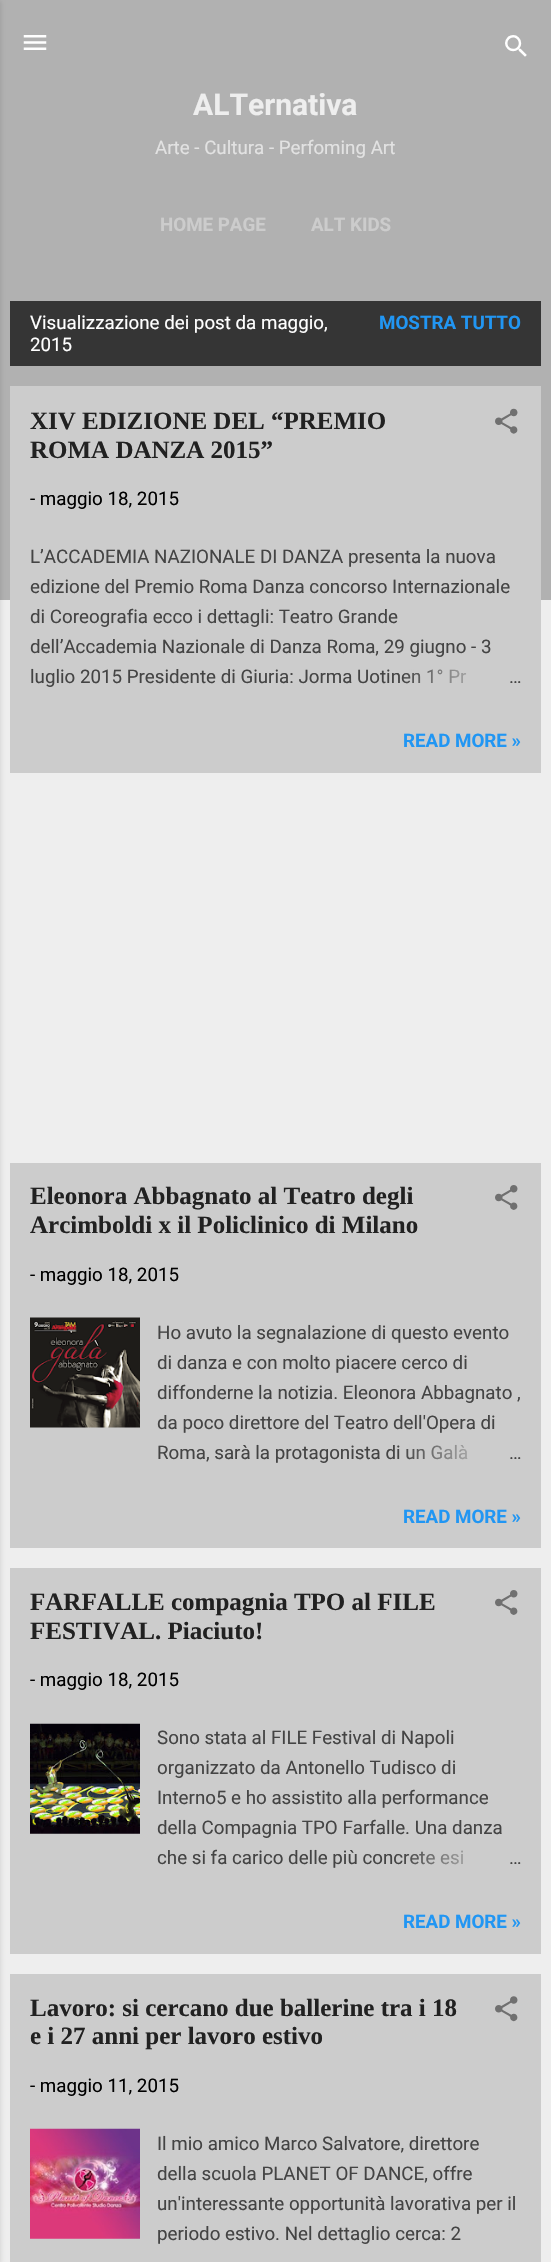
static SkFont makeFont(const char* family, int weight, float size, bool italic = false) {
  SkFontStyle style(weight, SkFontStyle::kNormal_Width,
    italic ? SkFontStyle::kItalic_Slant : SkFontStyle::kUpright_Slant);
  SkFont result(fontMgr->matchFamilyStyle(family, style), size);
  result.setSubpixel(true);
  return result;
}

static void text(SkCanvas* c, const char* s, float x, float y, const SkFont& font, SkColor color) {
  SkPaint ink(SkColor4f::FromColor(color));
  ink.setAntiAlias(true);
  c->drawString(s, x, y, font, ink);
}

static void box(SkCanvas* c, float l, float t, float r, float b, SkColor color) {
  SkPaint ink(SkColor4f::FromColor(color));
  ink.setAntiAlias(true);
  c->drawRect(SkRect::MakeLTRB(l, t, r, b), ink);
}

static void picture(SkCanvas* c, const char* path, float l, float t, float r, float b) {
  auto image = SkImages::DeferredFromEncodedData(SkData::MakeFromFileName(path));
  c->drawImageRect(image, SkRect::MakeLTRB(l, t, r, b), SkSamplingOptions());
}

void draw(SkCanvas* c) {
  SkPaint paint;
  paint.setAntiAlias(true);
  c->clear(0xffeeeeee);
  box(c, 0, 0, 551, 600, 0xffb1b1b1);
  paint.setColor(0x1a000000);
  paint.setMaskFilter(SkMaskFilter::MakeBlur(kNormal_SkBlurStyle, 2));
  c->drawRect(SkRect::MakeLTRB(-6, 1, 1, 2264), paint);
  paint.setMaskFilter(nullptr);
  picture(c, "img_01.png", 23, 35, 47, 50);
  picture(c, "img_02.png", 505, 35, 527, 57);
  SkFont face1 = makeFont("Roboto", 700, 30);
  text(c, "ALTernativa", 193, 115, face1, 0xffeeeeee);
  SkFont face2 = makeFont("Roboto", 400, 18.75f);
  text(c, "Arte - Cultura - Perfoming Art", 155, 154, face2, 0xffe2e2e2);
  SkFont face3 = makeFont("Roboto", 700, 18.75f);
  text(c, "HOME PAGE", 160, 231, face3, 0xffcccccc);
  text(c, "ALT KIDS", 311, 231, face3, 0xffcccccc);
  box(c, 10, 301, 541, 366, 0xff353535);
  text(c, "Visualizzazione dei post da maggio,", 30, 329, face2, 0xffffffff);
  text(c, "2015", 30, 351, face2, 0xffffffff);
  text(c, "MOSTRA TUTTO", 379, 329, face3, 0xff2196f3);
  box(c, 10, 386, 541, 773, 0xffcccccc);
  SkFont face4 = makeFont("Liberation Serif", 700, 25);
  text(c, "XIV EDIZIONE DEL “PREMIO", 30, 429, face4, 0xff212121);
  text(c, "ROMA DANZA 2015”", 30, 458, face4, 0xff212121);
  picture(c, "img_03.png", 495, 408, 518, 434);
  text(c, "- maggio 18, 2015", 30, 505, face2, 0xff000000);
  text(c, "L’ACCADEMIA NAZIONALE DI DANZA presenta la nuova", 30, 563, face2, 0xff444444);
  text(c, "edizione del Premio Roma Danza concorso Internazionale", 30, 593, face2, 0xff444444);
  text(c, "di Coreografia ecco i dettagli: Teatro Grande", 30, 623, face2, 0xff444444);
  text(c, "dell’Accademia Nazionale di Danza Roma, 29 giugno - 3", 30, 653, face2, 0xff444444);
  text(c, "luglio 2015 Presidente di Giuria: Jorma Uotinen 1° Pr", 30, 683, face2, 0xff444444);
  {
    const SkColor colors[] = {0xffcccccc, 0xffcccccc, 0x00cccccc};
    const float stops[] = {0, 0.2f, 1};
    const SkPoint ends[] = {{521, 678}, {401, 678}};
    paint.setShader(SkGradientShader::MakeLinear(ends, colors, stops, 3, SkTileMode::kClamp));
    paint.setAlpha(255);
  }
  c->drawRect(SkRect::MakeLTRB(403, 669, 467, 683), paint);
  text(c, "…", 509, 683, face2, 0xff444444);
  text(c, "READ MORE »", 403, 747, face3, 0xff2196f3);
  box(c, 10, 1163, 541, 1548, 0xffcccccc);
  text(c, "Eleonora Abbagnato al Teatro degli", 30, 1204, face4, 0xff212121);
  text(c, "Arcimboldi x il Policlinico di Milano", 30, 1233, face4, 0xff212121);
  picture(c, "img_04.png", 495, 1185, 518, 1210);
  text(c, "- maggio 18, 2015", 30, 1281, face2, 0xff000000);
  picture(c, "img_05.png", 30, 1317, 140, 1428);
  text(c, "Ho avuto la segnalazione di questo evento", 157, 1339, face2, 0xff444444);
  text(c, "di danza e con molto piacere cerco di", 157, 1369, face2, 0xff444444);
  text(c, "diffonderne la notizia. Eleonora Abbagnato ,", 157, 1399, face2, 0xff444444);
  text(c, "da poco direttore del Teatro dell'Opera di", 157, 1429, face2, 0xff444444);
  text(c, "Roma, sarà la protagonista di un Galà", 157, 1459, face2, 0xff444444);
  {
    const SkColor colors[] = {0xffcccccc, 0xffcccccc, 0x00cccccc};
    const float stops[] = {0, 0.2f, 1};
    const SkPoint ends[] = {{521, 1453}, {401, 1453}};
    paint.setShader(SkGradientShader::MakeLinear(ends, colors, stops, 3, SkTileMode::kClamp));
    paint.setAlpha(255);
  }
  c->drawRect(SkRect::MakeLTRB(406, 1444, 467, 1460), paint);
  text(c, "…", 509, 1459, face2, 0xff444444);
  text(c, "READ MORE »", 403, 1523, face3, 0xff2196f3);
  box(c, 10, 1568, 541, 1954, 0xffcccccc);
  text(c, "FARFALLE compagnia TPO al FILE", 30, 1610, face4, 0xff212121);
  text(c, "FESTIVAL. Piaciuto!", 30, 1639, face4, 0xff212121);
  picture(c, "img_04.png", 495, 1590, 518, 1615);
  text(c, "- maggio 18, 2015", 30, 1686, face2, 0xff000000);
  picture(c, "img_06.png", 30, 1723, 140, 1834);
  text(c, "Sono stata al FILE Festival di Napoli", 157, 1744, face2, 0xff444444);
  text(c, "organizzato da Antonello Tudisco di", 157, 1774, face2, 0xff444444);
  text(c, "Interno5 e ho assistito alla performance", 157, 1804, face2, 0xff444444);
  text(c, "della Compagnia TPO Farfalle. Una danza", 157, 1834, face2, 0xff444444);
  text(c, "che si fa carico delle più concrete esi", 157, 1864, face2, 0xff444444);
  {
    const SkColor colors[] = {0xffcccccc, 0xffcccccc, 0x00cccccc};
    const float stops[] = {0, 0.2f, 1};
    const SkPoint ends[] = {{521, 1859}, {401, 1859}};
    paint.setShader(SkGradientShader::MakeLinear(ends, colors, stops, 3, SkTileMode::kClamp));
    paint.setAlpha(255);
  }
  c->drawRect(SkRect::MakeLTRB(404, 1850, 463, 1865), paint);
  text(c, "…", 509, 1864, face2, 0xff444444);
  text(c, "READ MORE »", 403, 1928, face3, 0xff2196f3);
  box(c, 10, 1974, 541, 2262, 0xffcccccc);
  text(c, "Lavoro: si cercano due ballerine tra i 18", 30, 2016, face4, 0xff212121);
  text(c, "e i 27 anni per lavoro estivo", 30, 2044, face4, 0xff212121);
  picture(c, "img_07.png", 495, 1996, 518, 2022);
  text(c, "- maggio 11, 2015", 30, 2092, face2, 0xff000000);
  picture(c, "img_08.png", 30, 2128, 140, 2239);
  text(c, "Il mio amico Marco Salvatore, direttore", 157, 2150, face2, 0xff444444);
  text(c, "della scuola PLANET OF DANCE, offre", 157, 2180, face2, 0xff444444);
  text(c, "un'interessante opportunità lavorativa per il", 157, 2210, face2, 0xff444444);
  text(c, "periodo estivo. Nel dettaglio cerca: 2", 157, 2240, face2, 0xff444444);
}
